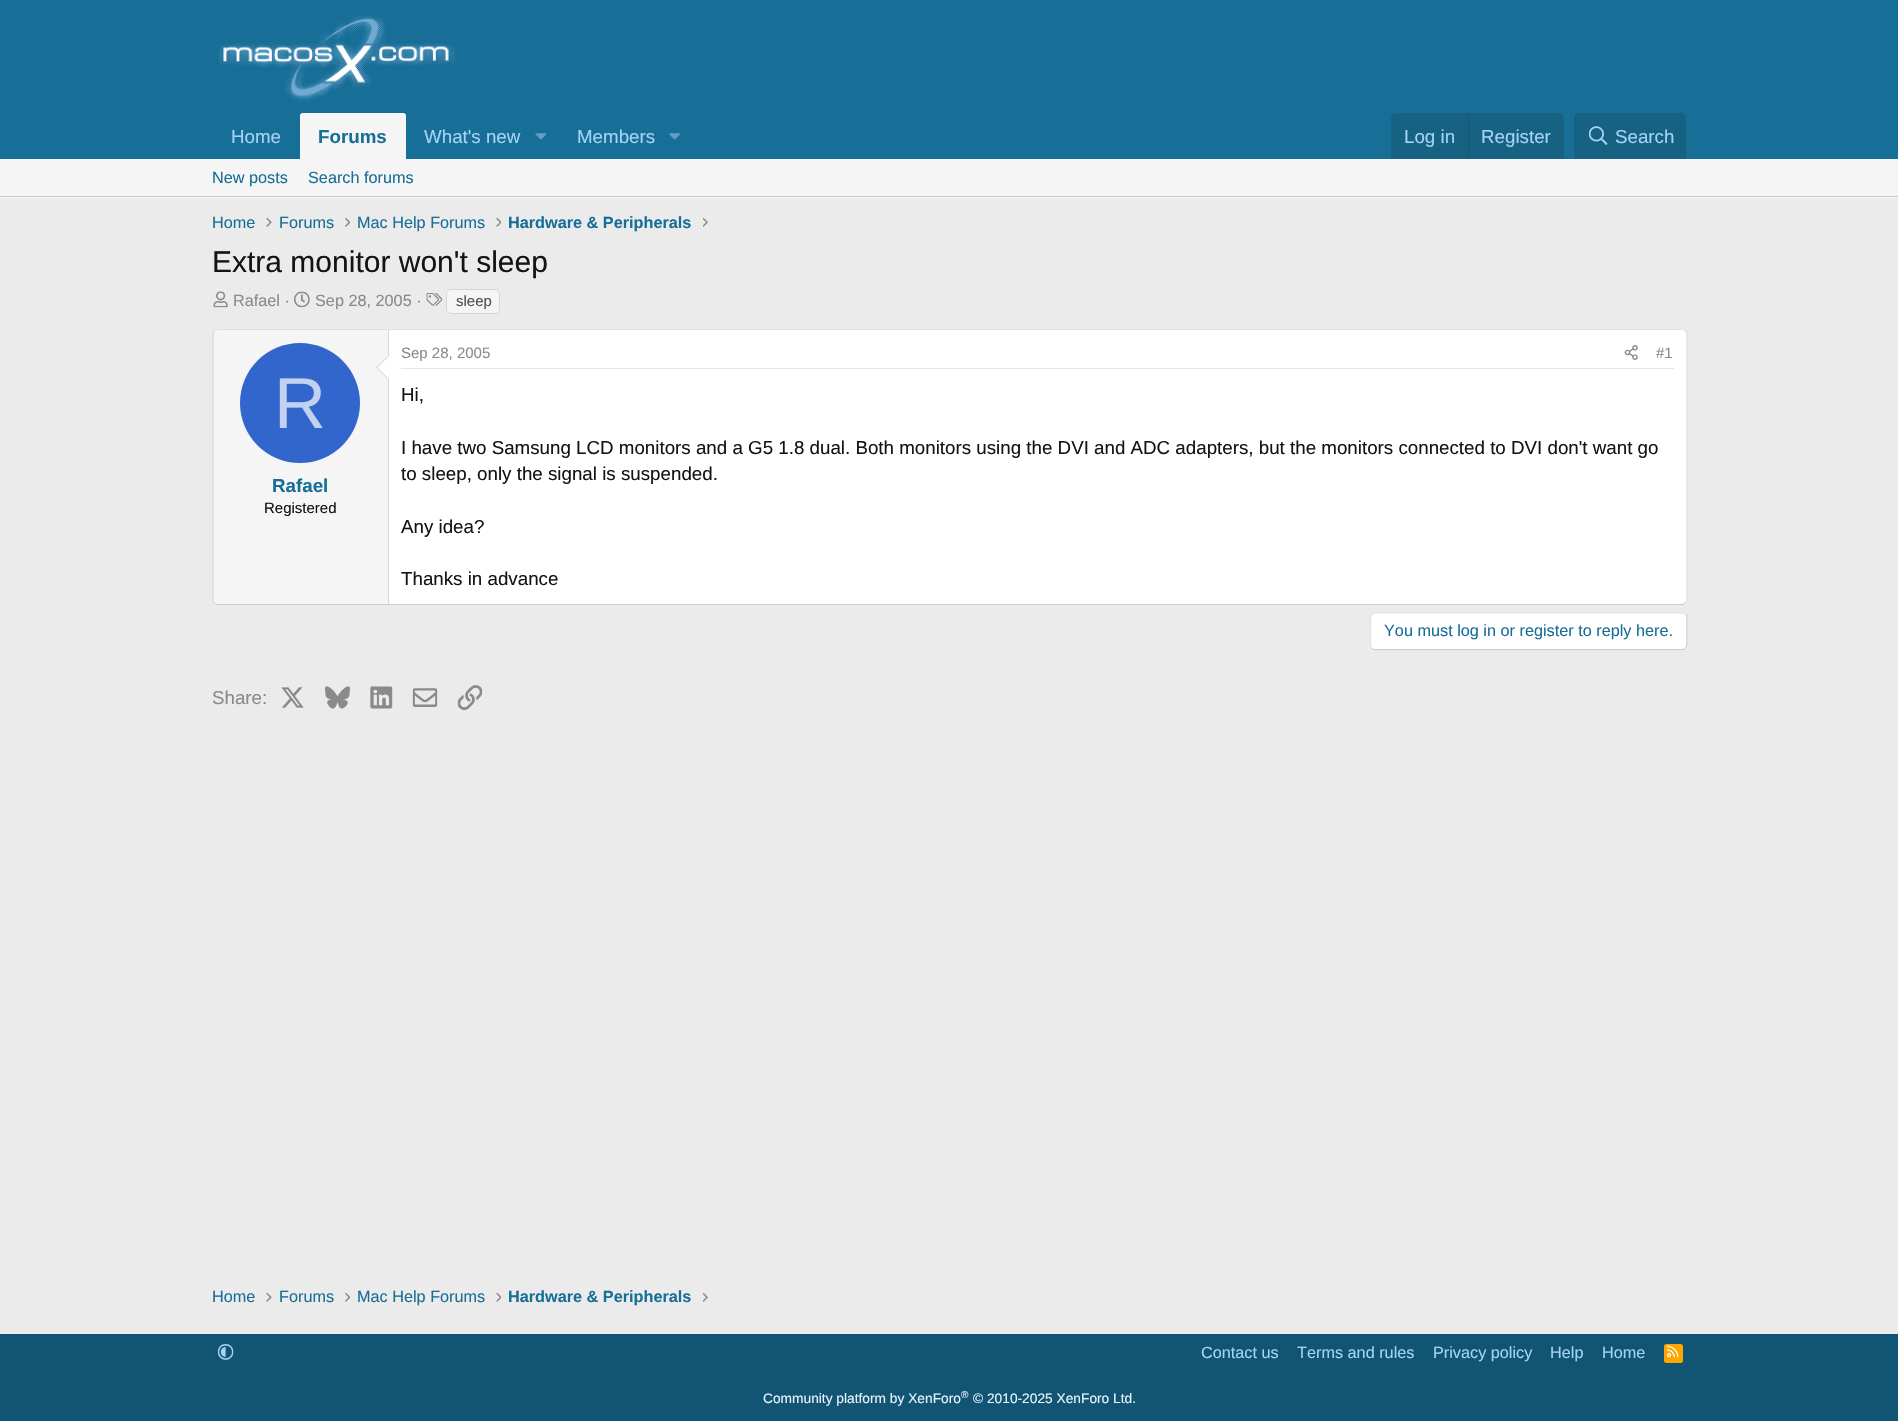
static SkFont makeFont(const char* family, int weight, float size, bool italic = false) {
  SkFontStyle style(weight, SkFontStyle::kNormal_Width,
    italic ? SkFontStyle::kItalic_Slant : SkFontStyle::kUpright_Slant);
  SkFont result(fontMgr->matchFamilyStyle(family, style), size);
  result.setSubpixel(true);
  return result;
}

static void text(SkCanvas* c, const char* s, float x, float y, const SkFont& font, SkColor color) {
  SkPaint ink(SkColor4f::FromColor(color));
  ink.setAntiAlias(true);
  c->drawString(s, x, y, font, ink);
}

static void box(SkCanvas* c, float l, float t, float r, float b, SkColor color) {
  SkPaint ink(SkColor4f::FromColor(color));
  ink.setAntiAlias(true);
  c->drawRect(SkRect::MakeLTRB(l, t, r, b), ink);
}

static void roundBox(SkCanvas* c, float l, float t, float r, float b, float radius, SkColor color) {
  SkPaint ink(SkColor4f::FromColor(color));
  ink.setAntiAlias(true);
  c->drawRoundRect(SkRect::MakeLTRB(l, t, r, b), radius, radius, ink);
}

static void picture(SkCanvas* c, const char* path, float l, float t, float r, float b) {
  auto image = SkImages::DeferredFromEncodedData(SkData::MakeFromFileName(path));
  c->drawImageRect(image, SkRect::MakeLTRB(l, t, r, b), SkSamplingOptions());
}

void draw(SkCanvas* c) {
  SkPaint paint;
  paint.setAntiAlias(true);
  c->clear(0xffebebeb);
  box(c, 0, 0, 1898, 159, 0xff176e97);
  picture(c, "img_01.png", 218, 14, 457, 102);
  SkFont face1 = makeFont("Liberation Sans", 400, 18.75f);
  text(c, "Home", 231, 143, face1, 0xffa3d4f5);
  paint.setColor(0xfff5f5f5);
  c->drawPath(SkPathBuilder().moveTo(302.5f, 113).lineTo(403.5f, 113).cubicTo(405, 113, 406, 114, 406, 115.5f).lineTo(406, 159).lineTo(300, 159).lineTo(300, 115.5f).cubicTo(300, 114, 301, 113, 302.5f, 113).close().detach(), paint);
  SkFont face2 = makeFont("Liberation Sans", 700, 18.75f);
  text(c, "Forums", 318, 143, face2, 0xff176e97);
  text(c, "What's new", 424, 143, face1, 0xffa3d4f5);
  picture(c, "img_02.png", 535, 133, 546, 140);
  text(c, "Members", 577, 143, face1, 0xffa3d4f5);
  picture(c, "img_03.png", 669, 133, 680, 140);
  paint.setColor(0xff176183);
  c->drawPath(SkPathBuilder().moveTo(1396, 113).lineTo(1559, 113).cubicTo(1562, 113, 1564, 115, 1564, 118).lineTo(1564, 159).lineTo(1391, 159).lineTo(1391, 118).cubicTo(1391, 115, 1393, 113, 1396, 113).close().detach(), paint);
  text(c, "Log in", 1404, 143, face1, 0xffa3d4f5);
  box(c, 1468, 113, 1469, 159, 0xff175572);
  text(c, "Register", 1481, 143, face1, 0xffa3d4f5);
  c->drawPath(SkPathBuilder().moveTo(1579, 113).lineTo(1681, 113).cubicTo(1684, 113, 1686, 115, 1686, 118).lineTo(1686, 159).lineTo(1574, 159).lineTo(1574, 118).cubicTo(1574, 115, 1576, 113, 1579, 113).close().detach(), paint);
  picture(c, "img_04.png", 1589, 126, 1608, 145);
  text(c, "Search", 1615, 143, face1, 0xffa3d4f5);
  box(c, 0, 159, 1898, 198, 0xfff5f5f5);
  box(c, 0, 196, 1898, 197, 0xffcccccc);
  SkFont face3 = makeFont("Liberation Sans", 400, 16.25f);
  text(c, "New posts", 212, 183, face3, 0xff176e97);
  text(c, "Search forums", 308, 183, face3, 0xff176e97);
  text(c, "Home", 212, 228, face3, 0xff176e97);
  picture(c, "img_05.png", 266, 217, 272, 227);
  text(c, "Forums", 279, 228, face3, 0xff176e97);
  picture(c, "img_06.png", 345, 217, 350, 227);
  text(c, "Mac Help Forums", 357, 228, face3, 0xff176e97);
  picture(c, "img_07.png", 496, 217, 501, 227);
  SkFont face4 = makeFont("Liberation Sans", 700, 16.25f);
  text(c, "Hardware & Peripherals", 508, 228, face4, 0xff176e97);
  picture(c, "img_08.png", 703, 217, 708, 227);
  SkFont face5 = makeFont("Liberation Sans", 400, 30);
  text(c, "Extra monitor won't sleep", 212, 272, face5, 0xff141414);
  picture(c, "img_09.png", 213, 291, 228, 308);
  text(c, "Rafael ·", 233, 306, face3, 0xff8a8a8a);
  picture(c, "img_10.png", 294, 291, 310, 308);
  text(c, "Sep 28, 2005 ·", 315, 306, face3, 0xff8a8a8a);
  picture(c, "img_11.png", 426, 293, 443, 306);
  paint.setColor(0xfff5f5f5);
  c->drawRoundRect(SkRect::MakeLTRB(446.5f, 289.5f, 499.5f, 313.5f), 4.5f, 4.5f, paint);
  paint.setStyle(SkPaint::kStroke_Style);
  paint.setStrokeWidth(1);
  paint.setColor(0xffd6d6d6);
  c->drawRoundRect(SkRect::MakeLTRB(446.5f, 289.5f, 499.5f, 313.5f), 4.5f, 4.5f, paint);
  SkFont face6 = makeFont("Liberation Sans", 400, 15);
  text(c, "sleep", 456, 306, face6, 0xff4f4f4f);
  roundBox(c, 213, 329, 1688, 605, 5, 0xffffffff);
  paint.setStrokeWidth(1.2f);
  paint.setColor(0xffe0e0e0);
  c->drawPath(SkPathBuilder().moveTo(214.5f, 330.5f).lineTo(217.5f, 329.5f).lineTo(1682.5f, 329.5f).lineTo(1685.5f, 330.5f).detach(), paint);
  paint.setColor(0xffd6d6d6);
  c->drawPath(SkPathBuilder().moveTo(1685.5f, 330.5f).cubicTo(1686.5f, 331.5f, 1687, 332.5f, 1687, 334).lineTo(1687, 600).cubicTo(1687, 601, 1686.5f, 602.5f, 1685.5f, 603).detach(), paint);
  paint.setColor(0xffcccccc);
  c->drawPath(SkPathBuilder().moveTo(1685.5f, 603).lineTo(1682.5f, 604.5f).lineTo(217.5f, 604.5f).lineTo(214.5f, 603).detach(), paint);
  paint.setColor(0xffd6d6d6);
  c->drawPath(SkPathBuilder().moveTo(214.5f, 603).cubicTo(213.5f, 602.5f, 213, 601, 213, 600).lineTo(213, 334).cubicTo(213, 332.5f, 213.5f, 331.5f, 214.5f, 330.5f).detach(), paint);
  paint.setStyle(SkPaint::kFill_Style);
  paint.setColor(0xfff5f5f5);
  c->drawPath(SkPathBuilder().moveTo(218, 330).lineTo(389, 330).lineTo(389, 604).lineTo(218, 604).cubicTo(216, 604, 214, 602, 214, 600).lineTo(214, 334).cubicTo(214, 332, 216, 330, 218, 330).close().detach(), paint);
  box(c, 388, 330, 389, 604, 0xffd6d6d6);
  paint.setColor(0xffd6d6d6);
  c->drawPath(SkPathBuilder().moveTo(389, 355).lineTo(389, 380).lineTo(376, 367.5f).close().detach(), paint);
  paint.setColor(0xffffffff);
  c->drawPath(SkPathBuilder().moveTo(389, 356).lineTo(389, 379).lineTo(377.5f, 367.5f).close().detach(), paint);
  paint.setColor(0xff3366cc);
  c->drawCircle(300, 403, 60, paint);
  SkFont face7 = makeFont("Liberation Sans", 400, 72);
  text(c, "R", 274, 428, face7, 0xffc2d1f0);
  text(c, "Rafael", 272, 492, face2, 0xff176e97);
  text(c, "Registered", 264, 513, face6, 0xff141414);
  box(c, 401, 368, 1674, 369, 0xffe6e6e6);
  text(c, "Sep 28, 2005", 401, 358, face6, 0xff8a8a8a);
  picture(c, "img_12.png", 1624, 345, 1638, 360);
  text(c, "#1", 1656, 358, face6, 0xff8a8a8a);
  text(c, "Hi,", 401, 401, face1, 0xff141414);
  text(c, "I have two Samsung LCD monitors and a G5 1.8 dual. Both monitors using the DVI and ADC adapters, but the monitors connected to DVI don't want go", 401, 454, face1, 0xff141414);
  text(c, "to sleep, only the signal is suspended.", 401, 480, face1, 0xff141414);
  text(c, "Any idea?", 401, 533, face1, 0xff141414);
  text(c, "Thanks in advance", 401, 585, face1, 0xff141414);
  roundBox(c, 1370, 613, 1688, 650, 5, 0xffffffff);
  paint.setStyle(SkPaint::kStroke_Style);
  paint.setColor(0xffc9c9c9);
  c->drawPath(SkPathBuilder().moveTo(1685.5f, 614.5f).cubicTo(1686.5f, 615, 1687, 616.5f, 1687, 617.5f).lineTo(1687, 645).cubicTo(1687, 646, 1686.5f, 647.5f, 1685.5f, 648).cubicTo(1685, 649, 1683.5f, 649.5f, 1682.5f, 649.5f).lineTo(1375, 649.5f).cubicTo(1374, 649.5f, 1372.5f, 649, 1372, 648).detach(), paint);
  paint.setColor(0xffe3e3e3);
  c->drawPath(SkPathBuilder().moveTo(1372, 648).cubicTo(1371, 647.5f, 1370.5f, 646, 1370.5f, 645).lineTo(1370.5f, 617.5f).cubicTo(1370.5f, 616.5f, 1371, 615, 1372, 614.5f).cubicTo(1372.5f, 613.5f, 1374, 613, 1375, 613).lineTo(1682.5f, 613).cubicTo(1683.5f, 613, 1685, 613.5f, 1685.5f, 614.5f).detach(), paint);
  text(c, "You must log in or register to reply here.", 1384, 636, face3, 0xff176e97);
  text(c, "Share:", 212, 704, face1, 0xff8a8a8a);
  picture(c, "img_13.png", 281, 687, 304, 708);
  picture(c, "img_14.png", 325, 686, 350, 709);
  picture(c, "img_15.png", 370, 686, 393, 709);
  picture(c, "img_16.png", 412, 688, 438, 707);
  picture(c, "img_17.png", 457, 685, 483, 710);
  text(c, "Home", 212, 1302, face3, 0xff176e97);
  picture(c, "img_05.png", 266, 1292, 272, 1302);
  text(c, "Forums", 279, 1302, face3, 0xff176e97);
  picture(c, "img_06.png", 345, 1292, 350, 1302);
  text(c, "Mac Help Forums", 357, 1302, face3, 0xff176e97);
  picture(c, "img_07.png", 496, 1292, 501, 1302);
  text(c, "Hardware & Peripherals", 508, 1302, face4, 0xff176e97);
  picture(c, "img_08.png", 703, 1292, 708, 1302);
  box(c, 0, 1334, 1898, 1421, 0xff115473);
  picture(c, "img_18.png", 217, 1344, 234, 1360);
  text(c, "Contact us", 1201, 1358, face3, 0xffa3d4f5);
  text(c, "Terms and rules", 1297, 1358, face3, 0xffa3d4f5);
  text(c, "Privacy policy", 1433, 1358, face3, 0xffa3d4f5);
  text(c, "Help", 1550, 1358, face3, 0xffa3d4f5);
  text(c, "Home", 1602, 1358, face3, 0xffa3d4f5);
  roundBox(c, 1664, 1344, 1683, 1363, 2.5f, 0xffffa500);
  picture(c, "img_19.png", 1667, 1345, 1679, 1358);
  SkFont face8 = makeFont("Liberation Sans", 400, 13.75f);
  text(c, "Community platform by XenForo", 763, 1403, face8, 0xffe8f4fc);
  SkFont face9 = makeFont("Liberation Sans", 400, 10);
  text(c, "®", 961, 1398, face9, 0xffe8f4fc);
  text(c, "© 2010-2025 XenForo Ltd.", 973, 1403, face8, 0xffe8f4fc);
}
